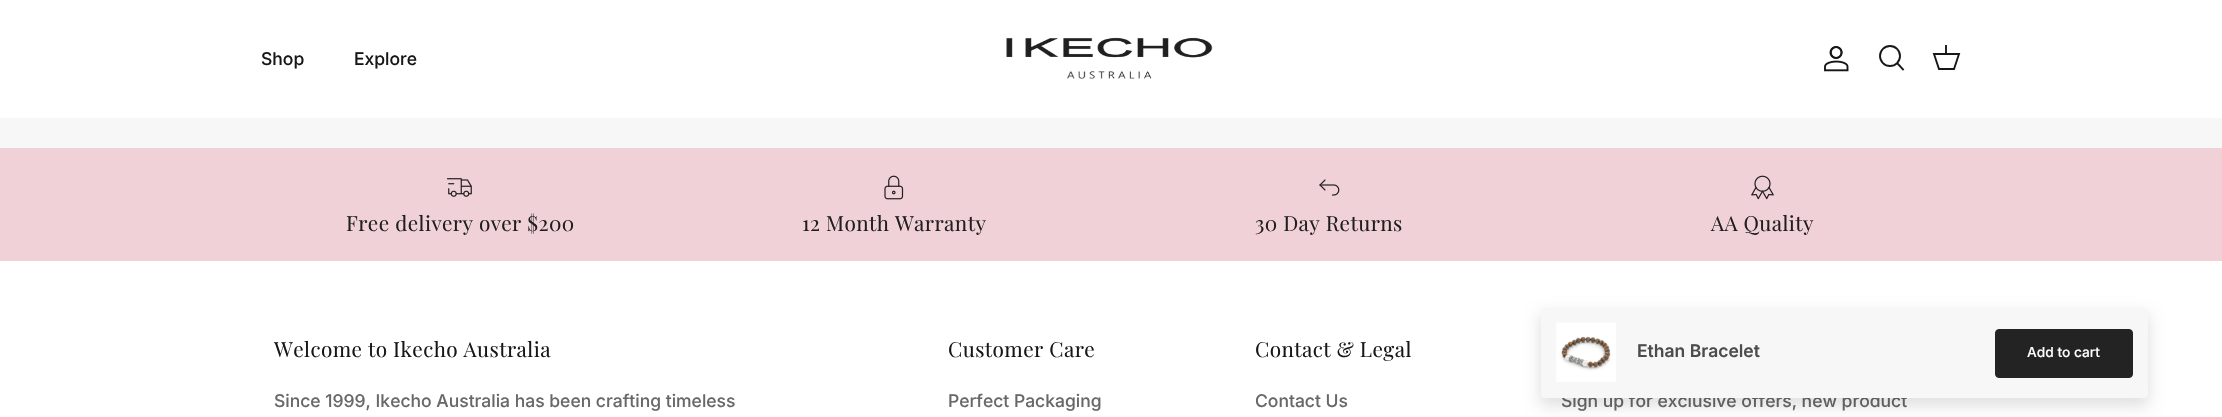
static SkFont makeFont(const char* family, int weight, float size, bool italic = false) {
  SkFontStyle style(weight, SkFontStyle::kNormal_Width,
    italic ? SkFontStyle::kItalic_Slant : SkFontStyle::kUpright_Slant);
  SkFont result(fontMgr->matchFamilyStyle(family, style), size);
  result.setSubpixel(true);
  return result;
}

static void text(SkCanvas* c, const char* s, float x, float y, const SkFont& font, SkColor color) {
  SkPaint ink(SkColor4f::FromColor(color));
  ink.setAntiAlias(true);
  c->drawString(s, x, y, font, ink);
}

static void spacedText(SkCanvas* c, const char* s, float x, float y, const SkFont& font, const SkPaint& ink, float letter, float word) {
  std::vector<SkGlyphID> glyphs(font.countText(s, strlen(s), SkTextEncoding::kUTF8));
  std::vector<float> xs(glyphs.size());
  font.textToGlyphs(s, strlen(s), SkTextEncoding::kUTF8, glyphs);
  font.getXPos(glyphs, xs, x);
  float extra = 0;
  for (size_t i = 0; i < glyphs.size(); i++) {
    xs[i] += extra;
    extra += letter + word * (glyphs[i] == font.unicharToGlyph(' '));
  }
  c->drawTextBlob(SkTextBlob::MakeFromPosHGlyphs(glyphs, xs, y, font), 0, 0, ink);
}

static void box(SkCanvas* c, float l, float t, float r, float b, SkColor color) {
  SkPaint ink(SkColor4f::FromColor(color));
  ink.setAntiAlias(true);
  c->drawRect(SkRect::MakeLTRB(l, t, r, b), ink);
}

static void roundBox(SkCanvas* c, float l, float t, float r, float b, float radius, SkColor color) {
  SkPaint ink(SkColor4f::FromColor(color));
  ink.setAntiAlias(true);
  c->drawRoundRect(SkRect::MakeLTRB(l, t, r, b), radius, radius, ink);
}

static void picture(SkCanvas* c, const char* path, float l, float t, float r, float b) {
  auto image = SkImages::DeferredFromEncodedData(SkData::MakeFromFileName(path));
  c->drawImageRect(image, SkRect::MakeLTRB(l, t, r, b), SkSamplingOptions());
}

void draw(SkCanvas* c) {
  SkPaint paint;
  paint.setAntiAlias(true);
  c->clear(0xfff7f7f8);
  box(c, 0, 0, 2222, 118, 0xffffffff);
  SkFont face1 = makeFont("Inter", 500, 17.5f);
  text(c, "Shop", 261, 65, face1, 0xff171717);
  text(c, "Explore", 354, 65, face1, 0xff171717);
  picture(c, "img_01.png", 1006, 37, 1213, 79);
  picture(c, "img_02.png", 1824, 46, 1849, 72);
  paint.setStyle(SkPaint::kStroke_Style);
  paint.setStrokeWidth(1.9f);
  paint.setColor(0xff171717);
  c->drawCircle(1890, 56, 10, paint);
  paint.setStrokeCap(SkPaint::kSquare_Cap);
  c->drawPath(SkPathBuilder().moveTo(1897.5f, 63.5f).lineTo(1903, 69.5f).detach(), paint);
  paint.setStrokeCap(SkPaint::kButt_Cap);
  c->drawPath(SkPathBuilder().moveTo(1934, 54).lineTo(1959, 54).lineTo(1954, 69).lineTo(1939, 69).close().detach(), paint);
  box(c, 1945, 45, 1947, 55, 0xf2171717);
  box(c, 0, 148, 2222, 261, 0xfff1d1d8);
  picture(c, "img_03.png", 446, 178, 472, 197);
  SkFont face2 = makeFont("Playfair Display", 400, 20.75f);
  paint.setStyle(SkPaint::kFill_Style);
  paint.setColor(0xff1f1f1e);
  spacedText(c, "Free delivery over $200", 346, 231, face2, paint, 0.4f, 0);
  picture(c, "img_04.png", 884, 175, 904, 200);
  spacedText(c, "12 Month Warranty", 802, 231, face2, paint, 0.4f, 0);
  picture(c, "img_05.png", 1319, 179, 1340, 196);
  spacedText(c, "30 Day Returns", 1255, 231, face2, paint, 0.4f, 0);
  picture(c, "img_06.png", 1751, 175, 1774, 200);
  spacedText(c, "AA Quality", 1711, 231, face2, paint, 0.4f, 0);
  box(c, 0, 261, 2222, 417, 0xffffffff);
  paint.setColor(0xff171717);
  spacedText(c, "Welcome to Ikecho Australia", 274, 357, face2, paint, 0.4f, 0);
  text(c, "Since 1999, Ikecho Australia has been crafting timeless", 274, 407, face1, 0xff676869);
  spacedText(c, "Customer Care", 948, 357, face2, paint, 0.4f, 0);
  text(c, "Perfect Packaging", 948, 407, face1, 0xff676869);
  spacedText(c, "Contact & Legal", 1255, 357, face2, paint, 0.4f, 0);
  text(c, "Contact Us", 1255, 407, face1, 0xff676869);
  text(c, "Sign up for exclusive offers, new product", 1561, 407, face1, 0xff676869);
  paint.setColor(0x1f000000);
  paint.setMaskFilter(SkMaskFilter::MakeBlur(kNormal_SkBlurStyle, 7.5f));
  c->drawRoundRect(SkRect::MakeLTRB(1540, 314, 2149, 406), 5, 5, paint);
  paint.setMaskFilter(nullptr);
  roundBox(c, 1541, 308, 2148, 398, 4, 0xfff7f7f8);
  picture(c, "img_07.png", 1556, 322, 1616, 382);
  SkFont face3 = makeFont("Inter", 600, 17.5f);
  text(c, "Ethan Bracelet", 1637, 357, face3, 0xff4c4c4b);
  paint.setColor(0xff232323);
  c->drawRoundRect(SkRect::MakeLTRB(1995.5f, 329.5f, 2132.5f, 377.5f), 3.5f, 3.5f, paint);
  paint.setStyle(SkPaint::kStroke_Style);
  paint.setStrokeWidth(1);
  c->drawRoundRect(SkRect::MakeLTRB(1995.5f, 329.5f, 2132.5f, 377.5f), 3.5f, 3.5f, paint);
  SkFont face4 = makeFont("Inter", 500, 13.75f);
  text(c, "Add to cart", 2027, 357, face4, 0xffffffff);
}
